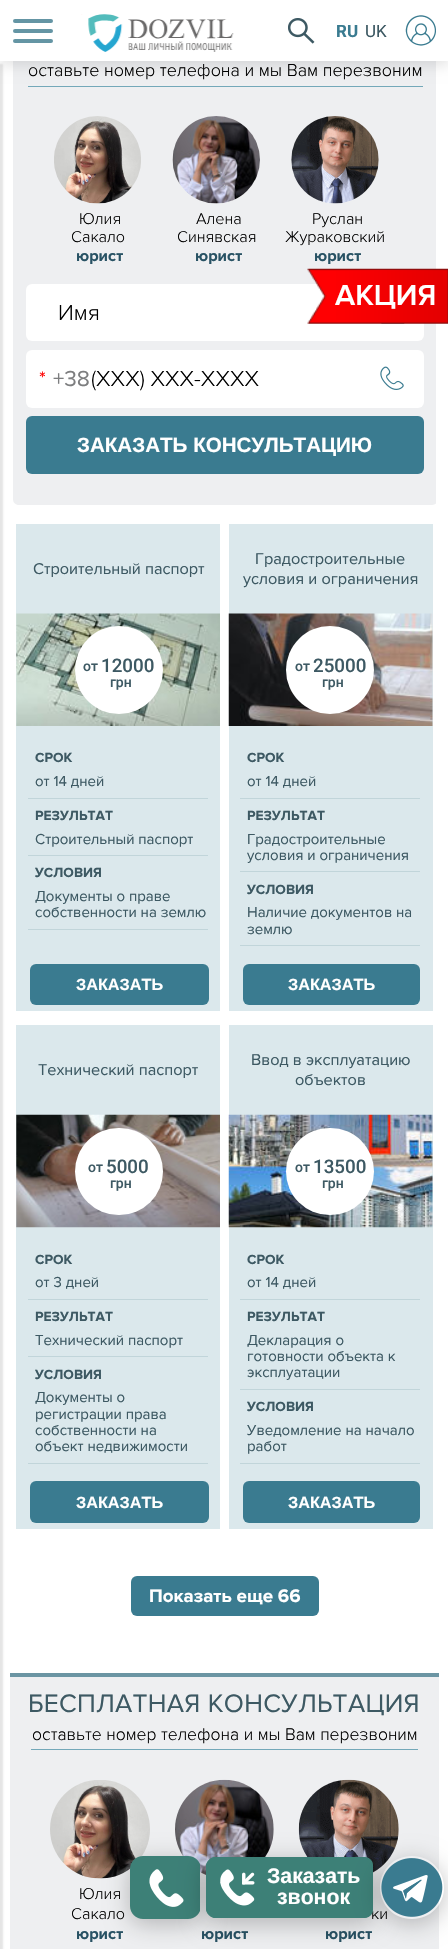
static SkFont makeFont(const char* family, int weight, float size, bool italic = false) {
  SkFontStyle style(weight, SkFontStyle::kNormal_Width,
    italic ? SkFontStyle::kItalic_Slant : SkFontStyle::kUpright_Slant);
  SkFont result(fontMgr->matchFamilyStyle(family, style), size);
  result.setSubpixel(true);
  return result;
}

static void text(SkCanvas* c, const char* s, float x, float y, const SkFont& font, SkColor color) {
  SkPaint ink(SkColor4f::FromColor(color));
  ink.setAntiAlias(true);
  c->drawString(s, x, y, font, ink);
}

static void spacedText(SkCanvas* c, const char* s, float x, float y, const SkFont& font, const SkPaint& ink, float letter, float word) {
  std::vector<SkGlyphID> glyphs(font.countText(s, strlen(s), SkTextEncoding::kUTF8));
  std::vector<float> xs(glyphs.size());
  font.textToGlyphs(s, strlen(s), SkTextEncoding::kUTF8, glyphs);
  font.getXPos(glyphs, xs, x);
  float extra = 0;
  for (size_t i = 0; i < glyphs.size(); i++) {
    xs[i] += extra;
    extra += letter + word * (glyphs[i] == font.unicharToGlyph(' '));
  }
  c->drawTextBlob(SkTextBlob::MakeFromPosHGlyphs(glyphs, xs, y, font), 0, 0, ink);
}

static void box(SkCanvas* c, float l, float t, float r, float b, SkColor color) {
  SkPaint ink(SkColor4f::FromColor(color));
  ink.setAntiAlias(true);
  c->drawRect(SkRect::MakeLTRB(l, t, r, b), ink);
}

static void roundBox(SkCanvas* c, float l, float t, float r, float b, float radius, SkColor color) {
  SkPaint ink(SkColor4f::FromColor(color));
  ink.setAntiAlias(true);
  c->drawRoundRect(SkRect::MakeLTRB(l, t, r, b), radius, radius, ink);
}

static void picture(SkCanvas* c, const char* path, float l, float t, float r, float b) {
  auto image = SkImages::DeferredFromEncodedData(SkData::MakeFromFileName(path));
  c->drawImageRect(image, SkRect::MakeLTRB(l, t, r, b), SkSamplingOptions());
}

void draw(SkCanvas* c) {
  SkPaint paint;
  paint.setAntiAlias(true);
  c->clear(0xffffffff);
  c->save();
  c->clipRect(SkRect::MakeLTRB(13, 0, 436, 1625));
  paint.setColor(0xffeeeff1);
  c->drawPath(SkPathBuilder().moveTo(13, 9).lineTo(438, 9).lineTo(438, 499).cubicTo(438, 502.5f, 435.5f, 505, 432, 505).lineTo(19, 505).cubicTo(15.5f, 505, 13, 502.5f, 13, 499).close().detach(), paint);
  c->restore();
  paint.setColor(0x1a000000);
  paint.setMaskFilter(SkMaskFilter::MakeBlur(kNormal_SkBlurStyle, 6));
  c->drawRect(SkRect::MakeLTRB(0, 5, 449, 66), paint);
  paint.setMaskFilter(nullptr);
  paint.setMaskFilter(SkMaskFilter::MakeBlur(kNormal_SkBlurStyle, 1));
  c->drawRect(SkRect::MakeLTRB(-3, 64, 3, 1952), paint);
  paint.setMaskFilter(nullptr);
  box(c, 0, 0, 448, 61, 0xffffffff);
  roundBox(c, 13, 19, 53, 23, 2, 0xff6495a4);
  roundBox(c, 13, 29, 53, 33, 2, 0xff6495a4);
  roundBox(c, 13, 39, 53, 43, 2, 0xff6495a4);
  picture(c, "img_01.png", 81, 14, 234, 52);
  picture(c, "img_02.png", 288, 18, 315, 44);
  SkFont face1 = makeFont("Roboto", 700, 17);
  text(c, "RU", 336, 37, face1, 0xff3a7b90);
  SkFont face2 = makeFont("Roboto", 400, 17);
  text(c, "UK", 365, 37, face2, 0xff3d5963);
  picture(c, "img_03.png", 405, 15, 436, 46);
  box(c, 28, 86, 423, 87, 0xff73a8b9);
  SkFont face3 = makeFont("Proxima Nova", 300, 17.9f);
  text(c, "оставьте номер телефона и мы Вам перезвоним", 28, 76, face3, 0xff000000);
  picture(c, "img_04.png", 54, 116, 141, 204);
  SkFont face4 = makeFont("Proxima Nova", 300, 16.25f);
  text(c, "Юлия", 79, 224, face4, 0xff000000);
  text(c, "Сакало", 71, 242, face4, 0xff000000);
  SkFont face5 = makeFont("Proxima Nova", 700, 16.25f);
  text(c, "юрист", 76, 261, face5, 0xff285264);
  picture(c, "img_05.png", 172, 116, 260, 204);
  text(c, "Алена", 196, 224, face4, 0xff000000);
  text(c, "Синявская", 177, 242, face4, 0xff000000);
  text(c, "юрист", 195, 261, face5, 0xff285264);
  picture(c, "img_06.png", 291, 116, 379, 204);
  text(c, "Руслан", 312, 224, face4, 0xff000000);
  text(c, "Жураковский", 285, 242, face4, 0xff000000);
  text(c, "юрист", 314, 261, face5, 0xff285264);
  roundBox(c, 26, 284, 424, 341, 6, 0xffffffff);
  picture(c, "img_07.png", 381, 323, 405, 324);
  SkFont face6 = makeFont("Proxima Nova", 300, 22.5f);
  text(c, "Имя", 58, 320, face6, 0xff000000);
  roundBox(c, 26, 350, 424, 408, 6, 0xffffffff);
  SkFont face7 = makeFont("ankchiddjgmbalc", 400, 20);
  text(c, "*", 39, 385, face7, 0xffff0000);
  SkFont face8 = makeFont("ankchiddjgmbalc", 400, 22.5f);
  text(c, "+38", 53, 386, face8, 0xff7d7e7f);
  picture(c, "img_08.png", 380, 366, 404, 390);
  text(c, "(XXX) XXX-XXXX", 91, 386, face6, 0xff000000);
  roundBox(c, 26, 416, 424, 474, 6, 0xff3a7b90);
  SkFont face9 = makeFont("Liberation Sans", 700, 20.6f);
  text(c, "ЗАКАЗАТЬ КОНСУЛЬТАЦИЮ", 77, 452, face9, 0xffffffff);
  box(c, 16, 524, 220, 1011, 0xffdbe8ec);
  SkFont face10 = makeFont("ankchiddjgmbalc", 400, 16.25f);
  text(c, "Строительный паспорт", 33, 574, face10, 0xff3d5963);
  picture(c, "img_09.png", 16, 613, 220, 726);
  paint.setColor(0xffffffff);
  c->drawCircle(119, 670, 44, paint);
  SkFont face11 = makeFont("Roboto", 500, 14);
  text(c, "от", 83, 671, face11, 0xff3d5963);
  SkFont face12 = makeFont("Roboto", 500, 18.75f);
  text(c, "12000", 101, 672, face12, 0xff3d5963);
  text(c, "грн", 110, 687, face11, 0xff3d5963);
  box(c, 28, 798, 208, 799, 0xffc1d5da);
  SkFont face13 = makeFont("Proxima Nova", 700, 13.75f);
  text(c, "СРОК", 35, 762, face13, 0xff3d5963);
  SkFont face14 = makeFont("ankchiddjgmbalc", 400, 15);
  text(c, "от 14 дней", 35, 786, face14, 0xff3d5963);
  box(c, 28, 855, 208, 856, 0xffc1d5da);
  text(c, "РЕЗУЛЬТАТ", 35, 820, face13, 0xff3d5963);
  text(c, "Строительный паспорт", 35, 844, face14, 0xff3d5963);
  box(c, 28, 929, 208, 930, 0xffc1d5da);
  text(c, "УСЛОВИЯ", 35, 877, face13, 0xff3d5963);
  text(c, "Документы о праве", 35, 901, face14, 0xff3d5963);
  text(c, "собственности на землю", 35, 917, face14, 0xff3d5963);
  roundBox(c, 30, 964, 209, 1005, 6, 0xff3a7b90);
  SkFont face15 = makeFont("Liberation Sans", 700, 16.25f);
  text(c, "ЗАКАЗАТЬ", 76, 990, face15, 0xffffffff);
  box(c, 229, 524, 433, 1011, 0xffdbe8ec);
  text(c, "Градостроительные", 255, 564, face10, 0xff3d5963);
  text(c, "условия и ограничения", 243, 584, face10, 0xff3d5963);
  picture(c, "img_10.png", 228, 613, 433, 726);
  c->drawCircle(330, 670, 44, paint);
  text(c, "от", 295, 671, face11, 0xff3d5963);
  text(c, "25000", 313, 672, face12, 0xff3d5963);
  text(c, "грн", 322, 687, face11, 0xff3d5963);
  box(c, 240, 798, 420, 799, 0xffc1d5da);
  text(c, "СРОК", 247, 762, face13, 0xff3d5963);
  text(c, "от 14 дней", 247, 786, face14, 0xff3d5963);
  box(c, 240, 871, 420, 872, 0xffc1d5da);
  text(c, "РЕЗУЛЬТАТ", 247, 820, face13, 0xff3d5963);
  text(c, "Градостроительные", 247, 844, face14, 0xff3d5963);
  text(c, "условия и ограничения", 247, 860, face14, 0xff3d5963);
  box(c, 240, 945, 420, 946, 0xffc1d5da);
  text(c, "УСЛОВИЯ", 247, 894, face13, 0xff3d5963);
  text(c, "Наличие документов на", 247, 917, face14, 0xff3d5963);
  text(c, "землю", 247, 934, face14, 0xff3d5963);
  roundBox(c, 243, 964, 420, 1005, 6, 0xff3a7b90);
  text(c, "ЗАКАЗАТЬ", 288, 990, face15, 0xffffffff);
  box(c, 16, 1025, 220, 1529, 0xffdbe8ec);
  text(c, "Технический паспорт", 38, 1075, face10, 0xff3d5963);
  picture(c, "img_11.png", 16, 1114, 220, 1228);
  roundBox(c, 75, 1128, 163, 1215, 43.5f, 0xffffffff);
  text(c, "от", 88, 1172, face11, 0xff3d5963);
  text(c, "5000", 106, 1173, face12, 0xff3d5963);
  text(c, "грн", 110, 1188, face11, 0xff3d5963);
  box(c, 28, 1299, 208, 1300, 0xffc1d5da);
  text(c, "СРОК", 35, 1264, face13, 0xff3d5963);
  text(c, "от 3 дней", 35, 1287, face14, 0xff3d5963);
  box(c, 28, 1356, 208, 1357, 0xffc1d5da);
  text(c, "РЕЗУЛЬТАТ", 35, 1321, face13, 0xff3d5963);
  text(c, "Технический паспорт", 35, 1345, face14, 0xff3d5963);
  box(c, 28, 1463, 208, 1464, 0xffc1d5da);
  text(c, "УСЛОВИЯ", 35, 1379, face13, 0xff3d5963);
  text(c, "Документы о", 35, 1402, face14, 0xff3d5963);
  text(c, "регистрации права", 35, 1419, face14, 0xff3d5963);
  text(c, "собственности на", 35, 1435, face14, 0xff3d5963);
  text(c, "объект недвижимости", 35, 1451, face14, 0xff3d5963);
  roundBox(c, 30, 1481, 209, 1523, 6, 0xff3a7b90);
  text(c, "ЗАКАЗАТЬ", 76, 1508, face15, 0xffffffff);
  box(c, 229, 1025, 433, 1529, 0xffdbe8ec);
  text(c, "Ввод в эксплуатацию", 251, 1065, face10, 0xff3d5963);
  text(c, "объектов", 295, 1085, face10, 0xff3d5963);
  picture(c, "img_12.png", 228, 1114, 433, 1228);
  roundBox(c, 286, 1128, 374, 1215, 43.5f, 0xffffffff);
  text(c, "от", 295, 1172, face11, 0xff3d5963);
  text(c, "13500", 313, 1173, face12, 0xff3d5963);
  text(c, "грн", 322, 1188, face11, 0xff3d5963);
  box(c, 240, 1299, 420, 1300, 0xffc1d5da);
  text(c, "СРОК", 247, 1264, face13, 0xff3d5963);
  text(c, "от 14 дней", 247, 1287, face14, 0xff3d5963);
  box(c, 240, 1389, 420, 1390, 0xffc1d5da);
  text(c, "РЕЗУЛЬТАТ", 247, 1321, face13, 0xff3d5963);
  text(c, "Декларация о", 247, 1345, face14, 0xff3d5963);
  text(c, "готовности объекта к", 247, 1361, face14, 0xff3d5963);
  text(c, "эксплуатации", 247, 1377, face14, 0xff3d5963);
  box(c, 240, 1463, 420, 1464, 0xffc1d5da);
  text(c, "УСЛОВИЯ", 247, 1411, face13, 0xff3d5963);
  text(c, "Уведомление на начало", 247, 1435, face14, 0xff3d5963);
  text(c, "работ", 247, 1451, face14, 0xff3d5963);
  roundBox(c, 243, 1481, 420, 1523, 6, 0xff3a7b90);
  text(c, "ЗАКАЗАТЬ", 288, 1508, face15, 0xffffffff);
  roundBox(c, 131, 1576, 319, 1616, 6, 0xff3a7b90);
  SkFont face16 = makeFont("Proxima Nova", 700, 18.75f);
  text(c, "Показать еще 66", 149, 1602, face16, 0xffffffff);
  box(c, 10, 1677, 439, 1949, 0xffeeeff1);
  box(c, 10, 1673, 439, 1677, 0xff6b95a3);
  SkFont face17 = makeFont("ankchiddjgmbalc", 400, 26.25f);
  paint.setColor(0xff3d5963);
  spacedText(c, "БЕСПЛАТНАЯ КОНСУЛЬТАЦИЯ", 28, 1712, face17, paint, 0.3f, 0);
  SkFont face18 = makeFont("Proxima Nova", 300, 17.5f);
  text(c, "оставьте номер телефона и мы Вам перезвоним", 32, 1740, face18, 0xff000000);
  box(c, 31, 1749, 418, 1750, 0xff73a8b9);
  picture(c, "img_13.png", 50, 1780, 150, 1879);
  text(c, "Юлия", 79, 1899, face4, 0xff000000);
  text(c, "Сакало", 71, 1919, face4, 0xff000000);
  text(c, "юрист", 76, 1939, face5, 0xff285264);
  picture(c, "img_14.png", 175, 1779, 274, 1875);
  text(c, "юрист", 201, 1939, face5, 0xff285264);
  picture(c, "img_15.png", 298, 1779, 399, 1873);
  text(c, "ки", 371, 1919, face4, 0xff000000);
  text(c, "юрист", 325, 1939, face5, 0xff285264);
  paint.setColor(0x40000000);
  paint.setMaskFilter(SkMaskFilter::MakeBlur(kNormal_SkBlurStyle, 12.5f));
  c->drawRoundRect(SkRect::MakeLTRB(130, 1861, 201, 1924), 13, 13, paint);
  paint.setMaskFilter(nullptr);
  picture(c, "img_16.png", 130, 1856, 200, 1919);
  paint.setMaskFilter(SkMaskFilter::MakeBlur(kNormal_SkBlurStyle, 12.5f));
  c->drawRoundRect(SkRect::MakeLTRB(205, 1861, 375, 1924), 13, 13, paint);
  paint.setMaskFilter(nullptr);
  picture(c, "img_17.png", 206, 1857, 373, 1918);
  box(c, 264, 1867, 359, 1906, 0xff3d8077);
  SkFont face19 = makeFont("Liberation Sans", 700, 21.25f);
  text(c, "Заказать", 267, 1883, face19, 0xffffffff);
  text(c, "звонок", 277, 1904, face19, 0xffffffff);
  c->save();
  c->clipPath(SkPathBuilder(SkPathFillType::kEvenOdd).moveTo(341, 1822).lineTo(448, 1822).lineTo(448, 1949).lineTo(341, 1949).close().moveTo(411.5f, 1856).lineTo(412.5f, 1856).cubicTo(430, 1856, 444, 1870, 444, 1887.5f).cubicTo(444, 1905, 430, 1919, 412.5f, 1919).lineTo(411.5f, 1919).cubicTo(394, 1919, 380, 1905, 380, 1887.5f).cubicTo(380, 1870, 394, 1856, 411.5f, 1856).close().detach(), true);
  paint.setMaskFilter(SkMaskFilter::MakeBlur(kNormal_SkBlurStyle, 12.5f));
  c->drawRoundRect(SkRect::MakeLTRB(380, 1861, 444, 1924), 31.5f, 31.5f, paint);
  paint.setMaskFilter(nullptr);
  c->restore();
  picture(c, "img_18.png", 381, 1858, 443, 1917);
  picture(c, "img_19.png", 307, 268, 448, 324);
  {
    const SkColor colors[] = {0xffff0002, 0xffe40001};
    const float stops[] = {0, 1};
    const SkPoint ends[] = {{330, 296}, {443, 296}};
    paint.setShader(SkGradientShader::MakeLinear(ends, colors, stops, 2, SkTileMode::kClamp));
    paint.setAlpha(255);
  }
  c->drawRect(SkRect::MakeLTRB(336, 271, 443, 320), paint);
  SkFont face20 = makeFont("Proxima Nova", 600, 30);
  text(c, "АКЦИЯ", 335, 305, face20, 0xffffffff);
}
